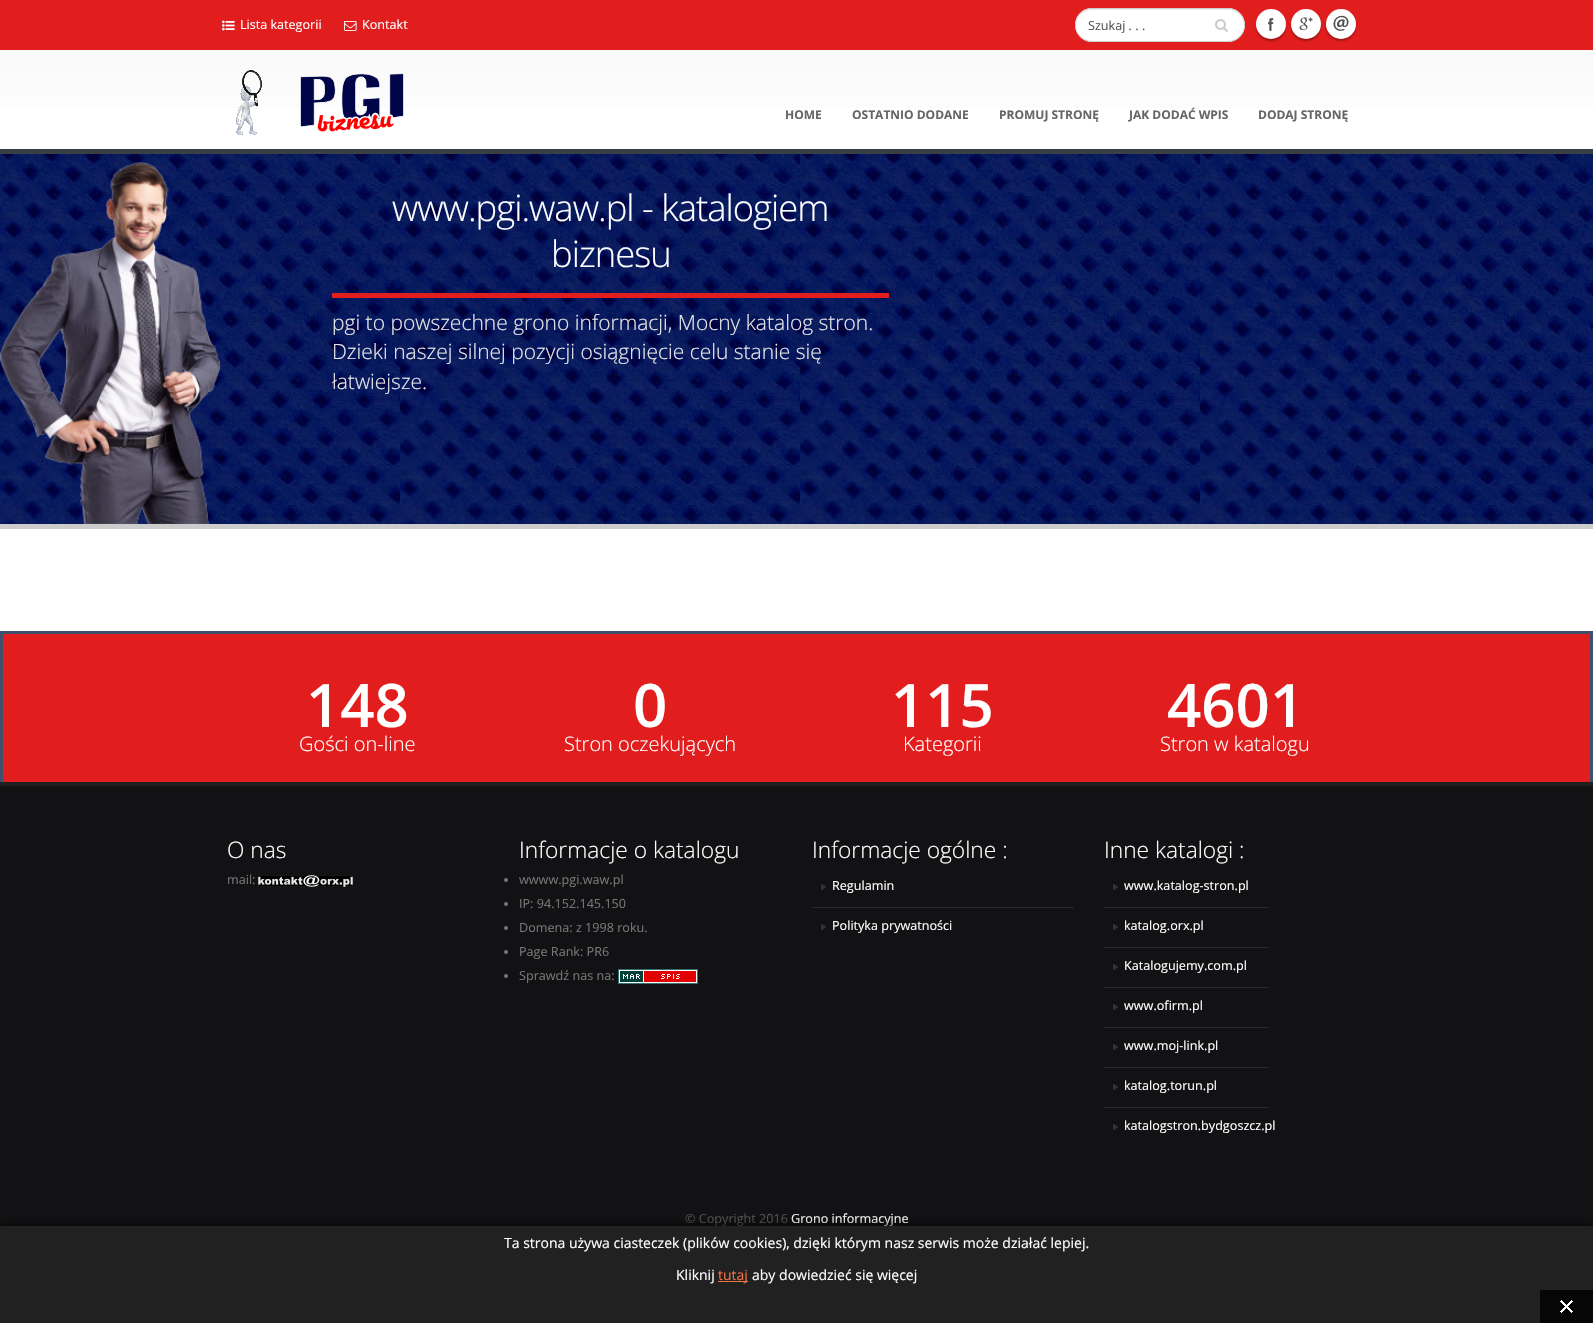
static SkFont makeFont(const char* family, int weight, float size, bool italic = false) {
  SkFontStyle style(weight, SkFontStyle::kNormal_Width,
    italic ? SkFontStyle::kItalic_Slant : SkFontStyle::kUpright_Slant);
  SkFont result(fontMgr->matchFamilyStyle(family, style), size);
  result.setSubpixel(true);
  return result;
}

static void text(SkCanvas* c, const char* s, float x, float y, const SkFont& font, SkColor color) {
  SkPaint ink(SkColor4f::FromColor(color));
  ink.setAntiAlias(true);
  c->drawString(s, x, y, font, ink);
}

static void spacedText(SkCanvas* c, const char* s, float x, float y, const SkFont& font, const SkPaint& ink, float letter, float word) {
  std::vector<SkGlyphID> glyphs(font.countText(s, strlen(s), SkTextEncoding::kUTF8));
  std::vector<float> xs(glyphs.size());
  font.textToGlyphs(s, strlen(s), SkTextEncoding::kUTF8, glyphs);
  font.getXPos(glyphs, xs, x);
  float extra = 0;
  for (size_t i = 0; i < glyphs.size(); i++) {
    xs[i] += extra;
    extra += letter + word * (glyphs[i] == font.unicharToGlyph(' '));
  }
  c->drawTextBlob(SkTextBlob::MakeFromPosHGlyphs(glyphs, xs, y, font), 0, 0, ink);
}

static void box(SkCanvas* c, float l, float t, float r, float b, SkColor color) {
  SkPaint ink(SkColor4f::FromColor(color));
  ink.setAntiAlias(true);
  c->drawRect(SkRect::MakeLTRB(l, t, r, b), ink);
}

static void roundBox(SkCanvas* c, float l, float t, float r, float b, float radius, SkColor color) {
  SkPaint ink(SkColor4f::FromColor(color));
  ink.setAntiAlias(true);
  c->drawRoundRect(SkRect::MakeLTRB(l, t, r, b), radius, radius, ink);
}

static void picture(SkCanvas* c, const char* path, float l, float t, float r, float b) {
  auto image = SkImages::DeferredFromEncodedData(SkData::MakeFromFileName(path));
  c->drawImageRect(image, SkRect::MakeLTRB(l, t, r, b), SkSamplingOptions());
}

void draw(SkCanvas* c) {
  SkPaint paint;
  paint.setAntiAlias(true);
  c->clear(0xffffffff);
  {
    const SkColor colors[] = {0xfff6f6f6, 0xffffffff};
    const float stops[] = {0, 1};
    const SkPoint ends[] = {{797, 0}, {797, 149}};
    paint.setShader(SkGradientShader::MakeLinear(ends, colors, stops, 2, SkTileMode::kClamp));
    paint.setAlpha(255);
  }
  c->drawRect(SkRect::MakeLTRB(0, 50, 1593, 108), paint);
  box(c, 0, 0, 1593, 50, 0xffe11d1d);
  picture(c, "img_01.png", 222, 20, 235, 31);
  SkFont face1 = makeFont("Open Sans", 400, 12.6f);
  text(c, "Lista kategorii", 240, 29, face1, 0xffffffff);
  picture(c, "img_02.png", 344, 21, 357, 31);
  text(c, "Kontakt", 362, 29, face1, 0xffffffff);
  roundBox(c, 1075, 8, 1245, 42, 17, 0xffffffff);
  paint.setShader(nullptr);
  paint.setColor(0xffececec);
  c->drawPath(SkPathBuilder().moveTo(1092, 10).lineTo(1228, 10).cubicTo(1237, 10, 1244, 17, 1244, 25).cubicTo(1244, 16, 1237, 9, 1228, 9).lineTo(1092, 9).cubicTo(1083, 9, 1076, 16, 1076, 25).cubicTo(1076, 17, 1083, 10, 1092, 10).close().detach(), paint);
  paint.setStyle(SkPaint::kStroke_Style);
  paint.setStrokeWidth(1);
  paint.setColor(0xffcccccc);
  c->drawRoundRect(SkRect::MakeLTRB(1075.5f, 8.5f, 1244.5f, 41.5f), 16.5f, 16.5f, paint);
  text(c, "Szukaj . . .", 1088, 30, face1, 0xff555555);
  picture(c, "img_03.png", 1215, 19, 1228, 32);
  paint.setStyle(SkPaint::kFill_Style);
  paint.setColor(0x4d000000);
  paint.setMaskFilter(SkMaskFilter::MakeBlur(kNormal_SkBlurStyle, 1));
  c->drawRoundRect(SkRect::MakeLTRB(1256, 11, 1286, 41), 15, 15, paint);
  paint.setMaskFilter(nullptr);
  paint.setColor(0xffffffff);
  c->drawCircle(1271, 24, 15, paint);
  picture(c, "img_04.png", 1268, 18, 1274, 31);
  paint.setColor(0x4d000000);
  paint.setMaskFilter(SkMaskFilter::MakeBlur(kNormal_SkBlurStyle, 1));
  c->drawRoundRect(SkRect::MakeLTRB(1291, 11, 1321, 41), 15, 15, paint);
  paint.setMaskFilter(nullptr);
  paint.setColor(0xffffffff);
  c->drawCircle(1306, 24, 15, paint);
  picture(c, "img_05.png", 1299, 17, 1313, 31);
  paint.setColor(0x4d000000);
  paint.setMaskFilter(SkMaskFilter::MakeBlur(kNormal_SkBlurStyle, 1));
  c->drawRoundRect(SkRect::MakeLTRB(1326, 11, 1356, 41), 15, 15, paint);
  paint.setMaskFilter(nullptr);
  paint.setColor(0xffffffff);
  c->drawCircle(1341, 24, 15, paint);
  picture(c, "img_06.png", 1333, 15, 1349, 31);
  picture(c, "img_07.png", 236, 70, 404, 135);
  SkFont face2 = makeFont("Open Sans", 700, 12);
  text(c, "HOME", 785, 119, face2, 0xff666666);
  text(c, "OSTATNIO DODANE", 852, 119, face2, 0xff666666);
  text(c, "PROMUJ STRONĘ", 999, 119, face2, 0xff666666);
  text(c, "JAK DODAĆ WPIS", 1129, 119, face2, 0xff666666);
  text(c, "DODAJ STRONĘ", 1258, 119, face2, 0xff666666);
  picture(c, "img_08.png", 0, 154, 1593, 524);
  picture(c, "img_09.png", 0, 162, 220, 524);
  box(c, 0, 149, 1593, 154, 0xff384045);
  box(c, 0, 524, 1593, 529, 0xffcccccc);
  box(c, 332, 293, 889, 298, 0xffe11d1d);
  SkFont face3 = makeFont("Open Sans", 300, 36.4f);
  spacedText(c, "www.pgi.waw.pl - katalogiem", 392, 221, face3, paint, -1, 0);
  spacedText(c, "biznesu", 551, 267, face3, paint, -1, 0);
  SkFont face4 = makeFont("Open Sans", 300, 21);
  text(c, "pgi to powszechne grono informacji, Mocny katalog stron.", 332, 330, face4, 0xffe8e8e8);
  text(c, "Dzieki naszej silnej pozycji osiągnięcie celu stanie się", 332, 359, face4, 0xffe8e8e8);
  text(c, "łatwiejsze.", 332, 389, face4, 0xffe8e8e8);
  box(c, 3, 634, 1590, 782, 0xffe11d1d);
  paint.setStyle(SkPaint::kStroke_Style);
  paint.setStrokeWidth(3);
  paint.setColor(0xff414f6d);
  c->drawRect(SkRect::MakeLTRB(1.5f, 632.5f, 1591.5f, 800.5f), paint);
  SkFont face5 = makeFont("Open Sans", 600, 60);
  text(c, "148", 306, 727, face5, 0xffffffff);
  SkFont face6 = makeFont("Open Sans", 300, 20);
  text(c, "Gości on-line", 299, 751, face6, 0xffffffff);
  text(c, "0", 633, 727, face5, 0xffffffff);
  text(c, "Stron oczekujących", 564, 751, face6, 0xffffffff);
  text(c, "115", 891, 727, face5, 0xffffffff);
  text(c, "Kategorii", 903, 751, face6, 0xffffffff);
  text(c, "4601", 1167, 727, face5, 0xffffffff);
  text(c, "Stron w katalogu", 1160, 751, face6, 0xffffffff);
  box(c, 0, 786, 1593, 1226, 0xff121214);
  box(c, 0, 782, 1593, 786, 0xff1f1f1f);
  SkFont face7 = makeFont("Open Sans", 300, 22.75f);
  text(c, "O nas", 227, 858, face7, 0xffffffff);
  text(c, "mail:", 227, 884, face1, 0xff777777);
  picture(c, "img_10.png", 258, 875, 353, 887);
  text(c, "Informacje o katalogu", 519, 858, face7, 0xffffffff);
  paint.setStyle(SkPaint::kFill_Style);
  paint.setColor(0xff777777);
  c->drawCircle(506, 880, 2, paint);
  text(c, "wwww.pgi.waw.pl", 519, 884, face1, 0xff777777);
  c->drawCircle(506, 904, 2, paint);
  text(c, "IP: 94.152.145.150", 519, 908, face1, 0xff777777);
  c->drawCircle(506, 928, 2, paint);
  text(c, "Domena: z 1998 roku.", 519, 932, face1, 0xff777777);
  c->drawCircle(506, 952, 2, paint);
  text(c, "Page Rank: PR6", 519, 956, face1, 0xff777777);
  c->drawCircle(506, 976, 2, paint);
  text(c, "Sprawdź nas na:", 519, 980, face1, 0xff777777);
  picture(c, "img_11.png", 618, 969, 698, 984);
  text(c, "Informacje ogólne :", 812, 858, face7, 0xffffffff);
  picture(c, "img_12.png", 821, 884, 826, 890);
  box(c, 812, 907, 1074, 908, 0xff2a2a2c);
  text(c, "Regulamin", 832, 890, face1, 0xffffffff);
  picture(c, "img_12.png", 821, 924, 826, 930);
  text(c, "Polityka prywatności", 832, 930, face1, 0xffffffff);
  text(c, "Inne katalogi :", 1104, 858, face7, 0xffffffff);
  picture(c, "img_12.png", 1113, 884, 1118, 890);
  box(c, 1104, 907, 1269, 908, 0xff2a2a2c);
  text(c, "www.katalog-stron.pl", 1124, 890, face1, 0xffffffff);
  picture(c, "img_12.png", 1113, 924, 1118, 930);
  box(c, 1104, 947, 1269, 948, 0xff2a2a2c);
  text(c, "katalog.orx.pl", 1124, 930, face1, 0xffffffff);
  picture(c, "img_12.png", 1113, 964, 1118, 970);
  box(c, 1104, 987, 1269, 988, 0xff2a2a2c);
  text(c, "Katalogujemy.com.pl", 1124, 970, face1, 0xffffffff);
  picture(c, "img_12.png", 1113, 1004, 1118, 1010);
  box(c, 1104, 1027, 1269, 1028, 0xff2a2a2c);
  text(c, "www.ofirm.pl", 1124, 1010, face1, 0xffffffff);
  picture(c, "img_12.png", 1113, 1044, 1118, 1050);
  box(c, 1104, 1067, 1269, 1068, 0xff2a2a2c);
  text(c, "www.moj-link.pl", 1124, 1050, face1, 0xffffffff);
  picture(c, "img_12.png", 1113, 1084, 1118, 1090);
  box(c, 1104, 1107, 1269, 1108, 0xff2a2a2c);
  text(c, "katalog.torun.pl", 1124, 1090, face1, 0xffffffff);
  picture(c, "img_12.png", 1113, 1124, 1118, 1130);
  text(c, "katalogstron.bydgoszcz.pl", 1124, 1130, face1, 0xffffffff);
  text(c, "© Copyright 2016", 685, 1223, face1, 0xff555555);
  text(c, "Grono informacyjne", 791, 1223, face1, 0xffffffff);
  paint.setColor(0xcc000000);
  paint.setMaskFilter(SkMaskFilter::MakeBlur(kNormal_SkBlurStyle, 5));
  c->drawRect(SkRect::MakeLTRB(0, 1226, 1593, 1323), paint);
  paint.setMaskFilter(nullptr);
  box(c, 0, 1226, 1593, 1323, 0xff212121);
  SkFont face8 = makeFont("Open Sans", 400, 14);
  text(c, "Ta strona używa ciasteczek (plików cookies), dzięki którym nasz serwis może działać lepiej.", 504, 1248, face8, 0xffffffff);
  text(c, "Kliknij", 676, 1280, face8, 0xffffffff);
  box(c, 718, 1281, 748, 1282, 0xfff07241);
  text(c, "tutaj", 718, 1280, face8, 0xfff07241);
  text(c, "aby dowiedzieć się więcej", 752, 1280, face8, 0xffffffff);
  box(c, 1540, 1290, 1593, 1323, 0xff060606);
  picture(c, "img_13.png", 1560, 1300, 1573, 1313);
}
